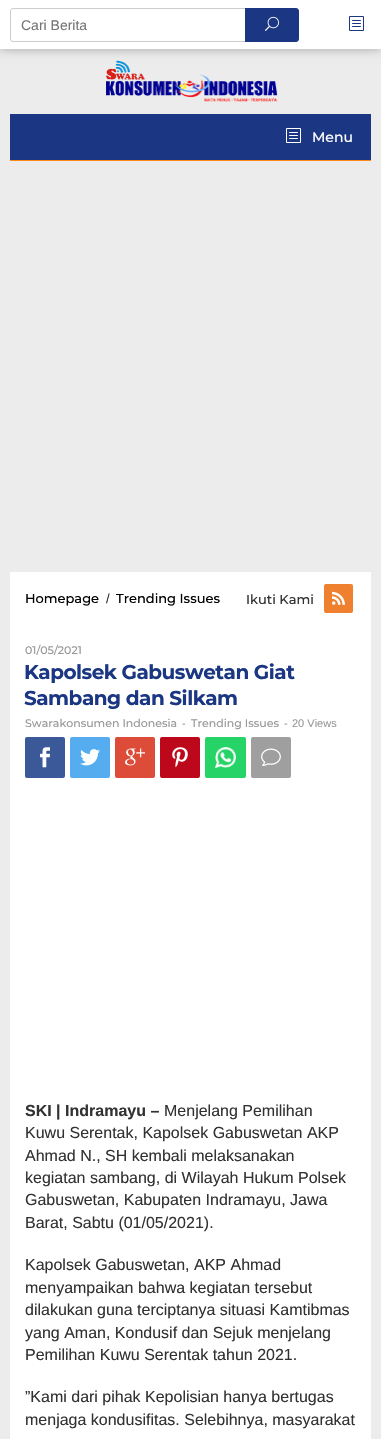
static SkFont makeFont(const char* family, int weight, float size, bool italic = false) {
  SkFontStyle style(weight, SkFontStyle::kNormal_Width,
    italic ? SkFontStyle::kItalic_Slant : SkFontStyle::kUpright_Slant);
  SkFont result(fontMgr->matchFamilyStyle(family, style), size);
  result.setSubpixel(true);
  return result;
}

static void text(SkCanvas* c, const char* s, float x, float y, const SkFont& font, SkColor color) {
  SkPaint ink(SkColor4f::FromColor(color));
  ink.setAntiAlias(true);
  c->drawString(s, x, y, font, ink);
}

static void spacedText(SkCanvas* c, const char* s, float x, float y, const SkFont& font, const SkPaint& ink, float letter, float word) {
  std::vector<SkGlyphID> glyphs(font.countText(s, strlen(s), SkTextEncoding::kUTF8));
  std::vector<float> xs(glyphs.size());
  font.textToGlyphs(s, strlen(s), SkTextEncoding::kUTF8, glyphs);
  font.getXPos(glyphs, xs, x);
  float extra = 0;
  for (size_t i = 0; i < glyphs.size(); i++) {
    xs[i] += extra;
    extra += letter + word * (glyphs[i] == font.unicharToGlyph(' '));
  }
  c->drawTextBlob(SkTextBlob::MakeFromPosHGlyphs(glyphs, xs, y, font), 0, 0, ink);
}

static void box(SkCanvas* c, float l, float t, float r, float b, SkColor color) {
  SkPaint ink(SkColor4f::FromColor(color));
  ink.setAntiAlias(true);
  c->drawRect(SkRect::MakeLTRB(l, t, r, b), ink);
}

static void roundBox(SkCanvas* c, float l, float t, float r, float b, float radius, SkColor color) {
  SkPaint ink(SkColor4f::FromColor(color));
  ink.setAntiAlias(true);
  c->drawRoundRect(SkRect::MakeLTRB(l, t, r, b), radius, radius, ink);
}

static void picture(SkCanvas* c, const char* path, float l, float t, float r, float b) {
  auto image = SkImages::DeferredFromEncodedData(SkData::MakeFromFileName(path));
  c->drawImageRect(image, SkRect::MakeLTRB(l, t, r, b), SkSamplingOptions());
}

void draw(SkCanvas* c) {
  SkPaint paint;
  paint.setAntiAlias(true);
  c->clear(0xffececec);
  paint.setColor(0x4d000000);
  paint.setMaskFilter(SkMaskFilter::MakeBlur(kNormal_SkBlurStyle, 5));
  c->drawRect(SkRect::MakeLTRB(0, 0, 381, 49), paint);
  paint.setMaskFilter(nullptr);
  box(c, 0, 0, 381, 49, 0xffffffff);
  paint.setStyle(SkPaint::kStroke_Style);
  paint.setStrokeWidth(1);
  paint.setColor(0xffcccccc);
  c->drawRoundRect(SkRect::MakeLTRB(10.5f, 8.5f, 298.5f, 41.5f), 2.5f, 2.5f, paint);
  SkFont face1 = makeFont("Liberation Sans", 400, 14);
  text(c, "Cari Berita", 21, 30, face1, 0xff757575);
  paint.setStyle(SkPaint::kFill_Style);
  paint.setColor(0xff1b3682);
  c->drawPath(SkPathBuilder().moveTo(245, 8).lineTo(296, 8).cubicTo(297.5f, 8, 299, 9.5f, 299, 11).lineTo(299, 39).cubicTo(299, 40.5f, 297.5f, 42, 296, 42).lineTo(245, 42).close().detach(), paint);
  picture(c, "img_01.png", 265, 16, 279, 31);
  picture(c, "img_02.png", 349, 16, 364, 31);
  picture(c, "img_03.png", 106, 60, 278, 102);
  box(c, 10, 114, 371, 160, 0xff1b3682);
  box(c, 10, 160, 371, 161, 0xfffe8917);
  picture(c, "img_04.png", 286, 128, 301, 143);
  SkFont face2 = makeFont("Montserrat", 500, 14);
  text(c, "Menu", 312, 142, face2, 0xffffffff);
  box(c, 10, 572, 371, 1439, 0xffffffff);
  SkFont face3 = makeFont("Montserrat", 500, 13);
  text(c, "Homepage", 25, 603, face3, 0xff000000);
  SkFont face4 = makeFont("Liberation Sans", 400, 13);
  text(c, "/", 106, 603, face4, 0xff323233);
  text(c, "Trending Issues", 116, 603, face3, 0xff000000);
  text(c, "Ikuti Kami", 246, 604, face3, 0xff323233);
  roundBox(c, 324, 584, 353, 613, 2, 0xffee802f);
  picture(c, "img_05.png", 332, 591, 345, 605);
  SkFont face5 = makeFont("Montserrat", 500, 11);
  text(c, "01/05/2021", 25, 654, face5, 0xff999999);
  SkFont face6 = makeFont("Montserrat", 700, 20);
  spacedText(c, "Kapolsek Gabuswetan Giat", 24, 679, face6, paint, -0.5f, 0);
  spacedText(c, "Sambang dan Silkam", 24, 705, face6, paint, -0.5f, 0);
  text(c, "Swarakonsumen Indonesia", 25, 727, face5, 0xff999999);
  SkFont face7 = makeFont("Liberation Sans", 400, 11);
  text(c, "-", 182, 727, face7, 0xff999999);
  text(c, "Trending Issues", 191, 727, face5, 0xff999999);
  text(c, "-", 284, 727, face7, 0xff999999);
  text(c, "20 Views", 292, 727, face7, 0xff999999);
  roundBox(c, 25, 737, 65, 778, 2, 0xff3b5998);
  picture(c, "img_06.png", 40, 747, 50, 768);
  roundBox(c, 70, 737, 110, 778, 2, 0xff55acee);
  picture(c, "img_07.png", 80, 749, 100, 766);
  roundBox(c, 115, 737, 155, 778, 2, 0xffdd4b39);
  picture(c, "img_08.png", 125, 748, 145, 766);
  roundBox(c, 160, 737, 200, 778, 2, 0xffbd081c);
  picture(c, "img_09.png", 172, 747, 188, 768);
  roundBox(c, 205, 737, 246, 778, 2, 0xff25d366);
  picture(c, "img_10.png", 215, 747, 236, 768);
  roundBox(c, 251, 737, 291, 778, 2, 0xff9f9f9f);
  picture(c, "img_11.png", 261, 748, 281, 766);
  SkFont face8 = makeFont("Liberation Sans", 700, 16);
  text(c, "SKI | Indramayu –", 25, 1116, face8, 0xff323233);
  SkFont face9 = makeFont("Liberation Sans", 400, 16);
  text(c, "Menjelang Pemilihan", 164, 1116, face9, 0xff323233);
  text(c, "Kuwu Serentak, Kapolsek Gabuswetan AKP", 25, 1138, face9, 0xff323233);
  text(c, "Ahmad N., SH kembali melaksanakan", 25, 1161, face9, 0xff323233);
  text(c, "kegiatan sambang, di Wilayah Hukum Polsek", 25, 1183, face9, 0xff323233);
  text(c, "Gabuswetan, Kabupaten Indramayu, Jawa", 25, 1205, face9, 0xff323233);
  text(c, "Barat, Sabtu (01/05/2021).", 25, 1228, face9, 0xff323233);
  text(c, "Kapolsek Gabuswetan, AKP Ahmad", 25, 1270, face9, 0xff323233);
  text(c, "menyampaikan bahwa kegiatan tersebut", 25, 1293, face9, 0xff323233);
  text(c, "dilakukan guna terciptanya situasi Kamtibmas", 25, 1315, face9, 0xff323233);
  text(c, "yang Aman, Kondusif dan Sejuk menjelang", 25, 1338, face9, 0xff323233);
  text(c, "Pemilihan Kuwu Serentak tahun 2021.", 25, 1360, face9, 0xff323233);
  text(c, "”Kami dari pihak Kepolisian hanya bertugas", 25, 1402, face9, 0xff323233);
  text(c, "menjaga kondusifitas. Selebihnya, masyarakat", 25, 1425, face9, 0xff323233);
}
